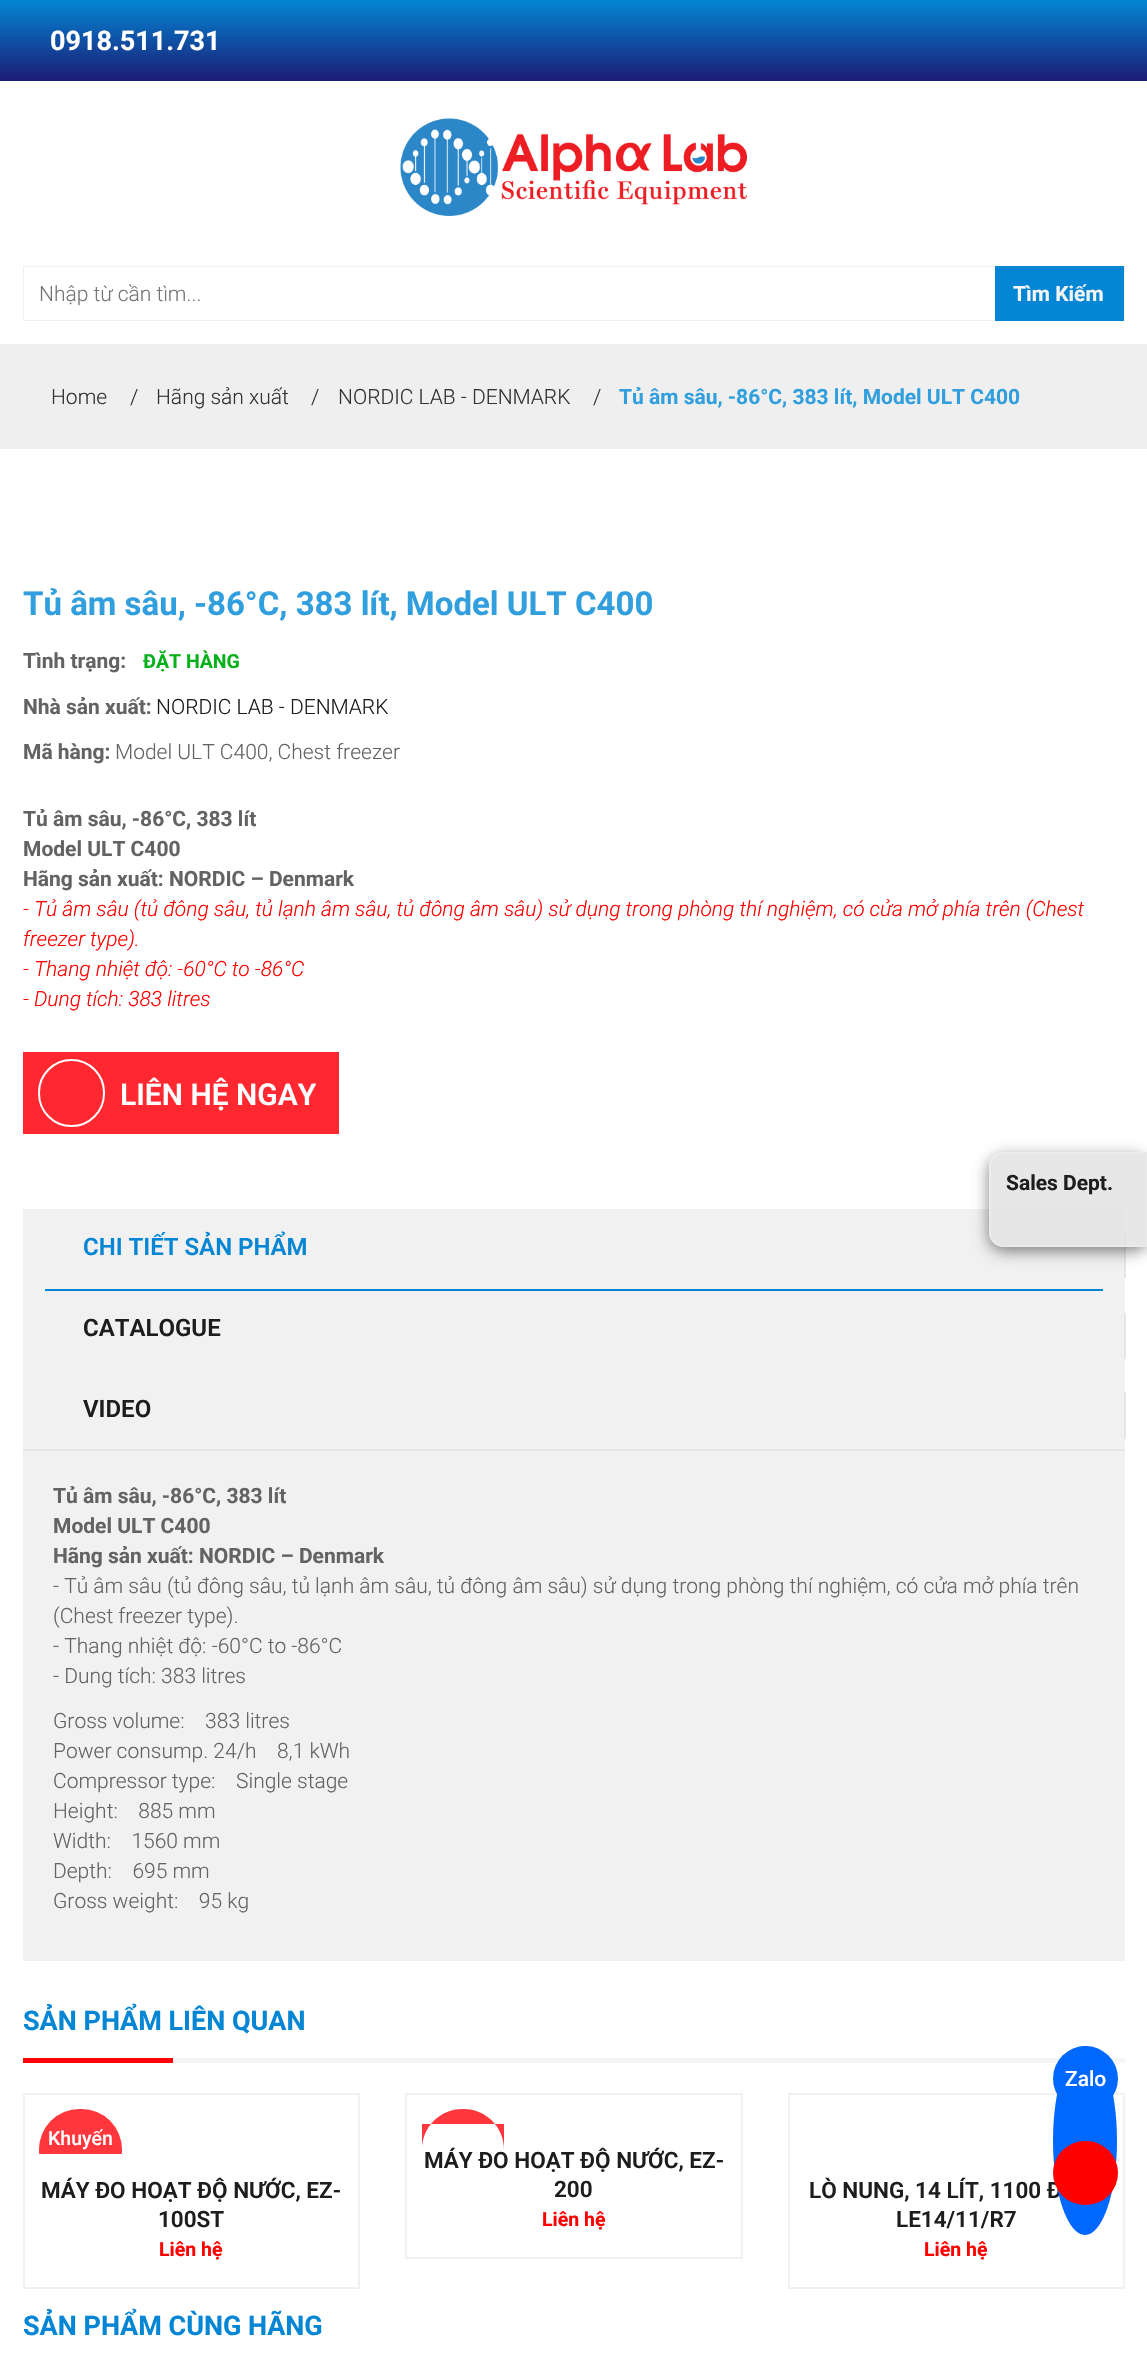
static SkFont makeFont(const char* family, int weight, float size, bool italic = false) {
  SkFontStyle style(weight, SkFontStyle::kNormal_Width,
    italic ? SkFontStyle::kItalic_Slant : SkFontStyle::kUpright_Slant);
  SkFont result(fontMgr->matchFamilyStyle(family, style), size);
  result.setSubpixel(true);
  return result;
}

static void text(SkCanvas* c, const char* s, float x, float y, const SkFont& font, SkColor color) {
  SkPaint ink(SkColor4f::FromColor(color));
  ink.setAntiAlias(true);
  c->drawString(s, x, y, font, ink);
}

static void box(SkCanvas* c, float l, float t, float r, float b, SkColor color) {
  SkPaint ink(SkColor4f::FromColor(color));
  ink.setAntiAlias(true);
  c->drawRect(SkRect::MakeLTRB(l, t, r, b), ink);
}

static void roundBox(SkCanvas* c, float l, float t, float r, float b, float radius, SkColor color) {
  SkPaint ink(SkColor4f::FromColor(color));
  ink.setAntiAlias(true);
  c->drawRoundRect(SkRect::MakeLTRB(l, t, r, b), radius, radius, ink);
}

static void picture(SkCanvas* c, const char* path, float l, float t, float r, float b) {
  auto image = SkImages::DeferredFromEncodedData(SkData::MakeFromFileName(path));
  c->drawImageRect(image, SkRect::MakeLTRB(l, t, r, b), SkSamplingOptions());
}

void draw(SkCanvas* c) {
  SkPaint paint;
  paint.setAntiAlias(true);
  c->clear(0xffffffff);
  {
    const SkColor colors[] = {0xff0486d4, 0xff1b1b74};
    const float stops[] = {0, 1};
    const SkPoint ends[] = {{574, 0}, {574, 81}};
    paint.setShader(SkGradientShader::MakeLinear(ends, colors, stops, 2, SkTileMode::kClamp));
    paint.setAlpha(255);
  }
  c->drawRect(SkRect::MakeLTRB(0, 0, 1147, 81), paint);
  SkFont face1 = makeFont("Roboto", 700, 27);
  text(c, "0918.511.731", 50, 50, face1, 0xffffffff);
  picture(c, "img_01.png", 400, 118, 747, 216);
  paint.setStyle(SkPaint::kStroke_Style);
  paint.setStrokeWidth(2);
  paint.setShader(nullptr);
  paint.setColor(0xfff1f1f1);
  c->drawRect(SkRect::MakeLTRB(24, 267, 1124, 320), paint);
  box(c, 24, 267, 995, 320, 0xffffffff);
  SkFont face2 = makeFont("Roboto", 300, 21);
  text(c, "Nhập từ cần tìm...", 39, 301, face2, 0xff757575);
  box(c, 995, 266, 1124, 321, 0xff0486d4);
  SkFont face3 = makeFont("Roboto", 700, 21);
  text(c, "Tìm Kiếm", 1013, 301, face3, 0xfff5f5f5);
  box(c, 0, 344, 1147, 449, 0xffefefef);
  text(c, "Home", 51, 404, face2, 0xff333333);
  text(c, "/", 130, 404, face2, 0xff333333);
  text(c, "Hãng sản xuất", 156, 404, face2, 0xff333333);
  text(c, "/", 311, 404, face2, 0xff333333);
  text(c, "NORDIC LAB - DENMARK", 338, 404, face2, 0xff333333);
  text(c, "/", 593, 404, face2, 0xff333333);
  text(c, "Tủ âm sâu, -86°C, 383 lít, Model ULT C400", 619, 404, face3, 0xff319fdd);
  SkFont face4 = makeFont("Roboto", 700, 33);
  text(c, "Tủ âm sâu, -86°C, 383 lít, Model ULT C400", 23, 615, face4, 0xff319fdd);
  text(c, "Tình trạng:", 23, 668, face3, 0xff636363);
  SkFont face5 = makeFont("Roboto", 700, 19.5f);
  text(c, "ĐẶT HÀNG", 143, 668, face5, 0xff05b11a);
  text(c, "Nhà sản xuất:", 23, 714, face3, 0xff636363);
  text(c, "NORDIC LAB - DENMARK", 156, 714, face2, 0xff1d1d1d);
  text(c, "Mã hàng:", 23, 759, face3, 0xff636363);
  text(c, "Model ULT C400, Chest freezer", 115, 759, face2, 0xff636363);
  text(c, "Tủ âm sâu, -86°C, 383 lít", 23, 826, face3, 0xff636363);
  text(c, "Model ULT C400", 23, 856, face3, 0xff636363);
  text(c, "Hãng sản xuất: NORDIC – Denmark", 23, 886, face3, 0xff636363);
  SkFont face6 = makeFont("Roboto", 300, 21, true);
  text(c, "- Tủ âm sâu (tủ đông sâu, tủ lạnh âm sâu, tủ đông âm sâu) sử dụng trong phòng thí nghiệm, có cửa mở phía trên (Chest", 23, 916, face6, 0xffff0000);
  text(c, "freezer type).", 23, 946, face6, 0xffff0000);
  text(c, "- Thang nhiệt độ: -60°C to -86°C", 23, 976, face6, 0xffff0000);
  text(c, "- Dung tích: 383 litres", 23, 1006, face6, 0xffff0000);
  box(c, 23, 1052, 339, 1134, 0xffff2830);
  paint.setColor(0xffffffff);
  c->drawRoundRect(SkRect::MakeLTRB(39, 1060, 104, 1126), 32.5f, 32.5f, paint);
  SkFont face7 = makeFont("Roboto", 600, 30);
  text(c, "LIÊN HỆ NGAY", 120, 1105, face7, 0xffffffff);
  box(c, 23, 1209, 1125, 1961, 0xfff1f1f1);
  box(c, 45, 1289, 1103, 1291, 0xff0785d2);
  SkFont face8 = makeFont("Roboto", 600, 24);
  text(c, "CHI TIẾT SẢN PHẨM", 83, 1255, face8, 0xff0486d4);
  box(c, 1124, 1232, 1126, 1278, 0xffe6e6e6);
  text(c, "CATALOGUE", 83, 1336, face8, 0xff1d1d1d);
  box(c, 1124, 1313, 1126, 1359, 0xffe6e6e6);
  text(c, "VIDEO", 83, 1417, face8, 0xff1d1d1d);
  box(c, 1124, 1392, 1126, 1439, 0xffe6e6e6);
  box(c, 23, 1449, 1125, 1451, 0xffe6e6e6);
  text(c, "Tủ âm sâu, -86°C, 383 lít", 53, 1503, face3, 0xff636363);
  text(c, "Model ULT C400", 53, 1533, face3, 0xff636363);
  text(c, "Hãng sản xuất: NORDIC – Denmark", 53, 1563, face3, 0xff636363);
  text(c, "- Tủ âm sâu (tủ đông sâu, tủ lạnh âm sâu, tủ đông âm sâu) sử dụng trong phòng thí nghiệm, có cửa mở phía trên", 53, 1593, face2, 0xff636363);
  text(c, "(Chest freezer type).", 53, 1623, face2, 0xff636363);
  text(c, "- Thang nhiệt độ: -60°C to -86°C", 53, 1653, face2, 0xff636363);
  text(c, "- Dung tích: 383 litres", 53, 1683, face2, 0xff636363);
  text(c, "Gross volume:    383 litres", 53, 1728, face2, 0xff636363);
  text(c, "Power consump. 24/h    8,1 kWh", 53, 1758, face2, 0xff636363);
  text(c, "Compressor type:    Single stage", 53, 1788, face2, 0xff636363);
  text(c, "Height:    885 mm", 53, 1818, face2, 0xff636363);
  text(c, "Width:    1560 mm", 53, 1848, face2, 0xff636363);
  text(c, "Depth:    695 mm", 53, 1878, face2, 0xff636363);
  text(c, "Gross weight:    95 kg", 53, 1908, face2, 0xff636363);
  box(c, 173, 2058, 1125, 2063, 0xfff5f5f5);
  text(c, "SẢN PHẨM LIÊN QUAN", 23, 2030, face1, 0xff0486d4);
  box(c, 23, 2058, 173, 2063, 0xffff0004);
  paint.setColor(0xfff1f1f1);
  c->drawRect(SkRect::MakeLTRB(24, 2094, 359, 2288), paint);
  SkFont face9 = makeFont("Roboto", 600, 22.5f);
  text(c, "MÁY ĐO HOẠT ĐỘ NƯỚC, EZ-", 41, 2198, face9, 0xff1d1d1d);
  c->save();
  c->clipRect(SkRect::MakeLTRB(24, 2094, 359, 2154));
  roundBox(c, 39, 2109, 122, 2190, 40.5f, 0xffff373c);
  c->restore();
  SkFont face10 = makeFont("Roboto", 500, 19.5f);
  text(c, "Khuyến", 48, 2145, face10, 0xffffffff);
  text(c, "100ST", 158, 2227, face9, 0xff1d1d1d);
  text(c, "Liên hệ", 159, 2256, face5, 0xffff0000);
  c->drawRect(SkRect::MakeLTRB(406, 2094, 742, 2258), paint);
  paint.setStyle(SkPaint::kFill_Style);
  paint.setColor(0xffff373c);
  c->drawPath(SkPathBuilder().moveTo(462.5f, 2109).lineTo(463.5f, 2109).cubicTo(486, 2109, 504, 2127, 504, 2149.5f).lineTo(504, 2124).lineTo(422, 2124).lineTo(422, 2149.5f).cubicTo(422, 2127, 440, 2109, 462.5f, 2109).close().detach(), paint);
  text(c, "MÁY ĐO HOẠT ĐỘ NƯỚC, EZ-", 424, 2168, face9, 0xff1d1d1d);
  text(c, "200", 554, 2197, face9, 0xff1d1d1d);
  text(c, "Liên hệ", 542, 2226, face5, 0xffff0000);
  paint.setStyle(SkPaint::kStroke_Style);
  paint.setColor(0xfff1f1f1);
  c->drawRect(SkRect::MakeLTRB(789, 2094, 1124, 2288), paint);
  text(c, "LÒ NUNG, 14 LÍT, 1100 Đ", 809, 2198, face9, 0xff1d1d1d);
  text(c, "LE14/11/R7", 896, 2227, face9, 0xff1d1d1d);
  text(c, "Liên hệ", 924, 2256, face5, 0xffff0000);
  text(c, "SẢN PHẨM CÙNG HÃNG", 23, 2335, face1, 0xff0486d4);
  c->save();
  c->clipPath(SkPathBuilder(SkPathFillType::kEvenOdd).moveTo(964, 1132).lineTo(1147, 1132).lineTo(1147, 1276).lineTo(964, 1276).close().moveTo(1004, 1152).lineTo(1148, 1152).lineTo(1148, 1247).lineTo(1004, 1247).cubicTo(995.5f, 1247, 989, 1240.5f, 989, 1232).lineTo(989, 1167).cubicTo(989, 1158.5f, 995.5f, 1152, 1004, 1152).close().detach(), true);
  paint.setStyle(SkPaint::kFill_Style);
  paint.setColor(0x80000000);
  paint.setMaskFilter(SkMaskFilter::MakeBlur(kNormal_SkBlurStyle, 8));
  c->drawRoundRect(SkRect::MakeLTRB(989, 1157, 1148, 1251), 15, 15, paint);
  paint.setMaskFilter(nullptr);
  c->restore();
  paint.setColor(0xcce1e1e1);
  c->drawPath(SkPathBuilder().moveTo(1004, 1153).lineTo(1147, 1153).lineTo(1147, 1246).lineTo(1004, 1246).cubicTo(996.5f, 1246, 990, 1239.5f, 990, 1232).lineTo(990, 1167).cubicTo(990, 1159.5f, 996.5f, 1153, 1004, 1153).close().detach(), paint);
  paint.setStyle(SkPaint::kStroke_Style);
  paint.setColor(0xffebebeb);
  c->drawPath(SkPathBuilder().moveTo(1004, 1153).lineTo(1147, 1153).lineTo(1147, 1246).lineTo(1004, 1246).cubicTo(996.5f, 1246, 990, 1239.5f, 990, 1232).lineTo(990, 1167).cubicTo(990, 1159.5f, 996.5f, 1153, 1004, 1153).close().detach(), paint);
  text(c, "Sales Dept.", 1006, 1190, face3, 0xff1d1d1d);
  paint.setStyle(SkPaint::kFill_Style);
  paint.setColor(0xff0068ff);
  c->drawOval(SkRect::MakeLTRB(1053, 2046, 1117, 2235), paint);
  c->drawCircle(1085.5f, 2078.5f, 32.5f, paint);
  SkFont face11 = makeFont("Roboto", 500, 21);
  text(c, "Zalo", 1065, 2086, face11, 0xffffffff);
  roundBox(c, 1053, 2141, 1118, 2205, 32, 0xffff0000);
}
